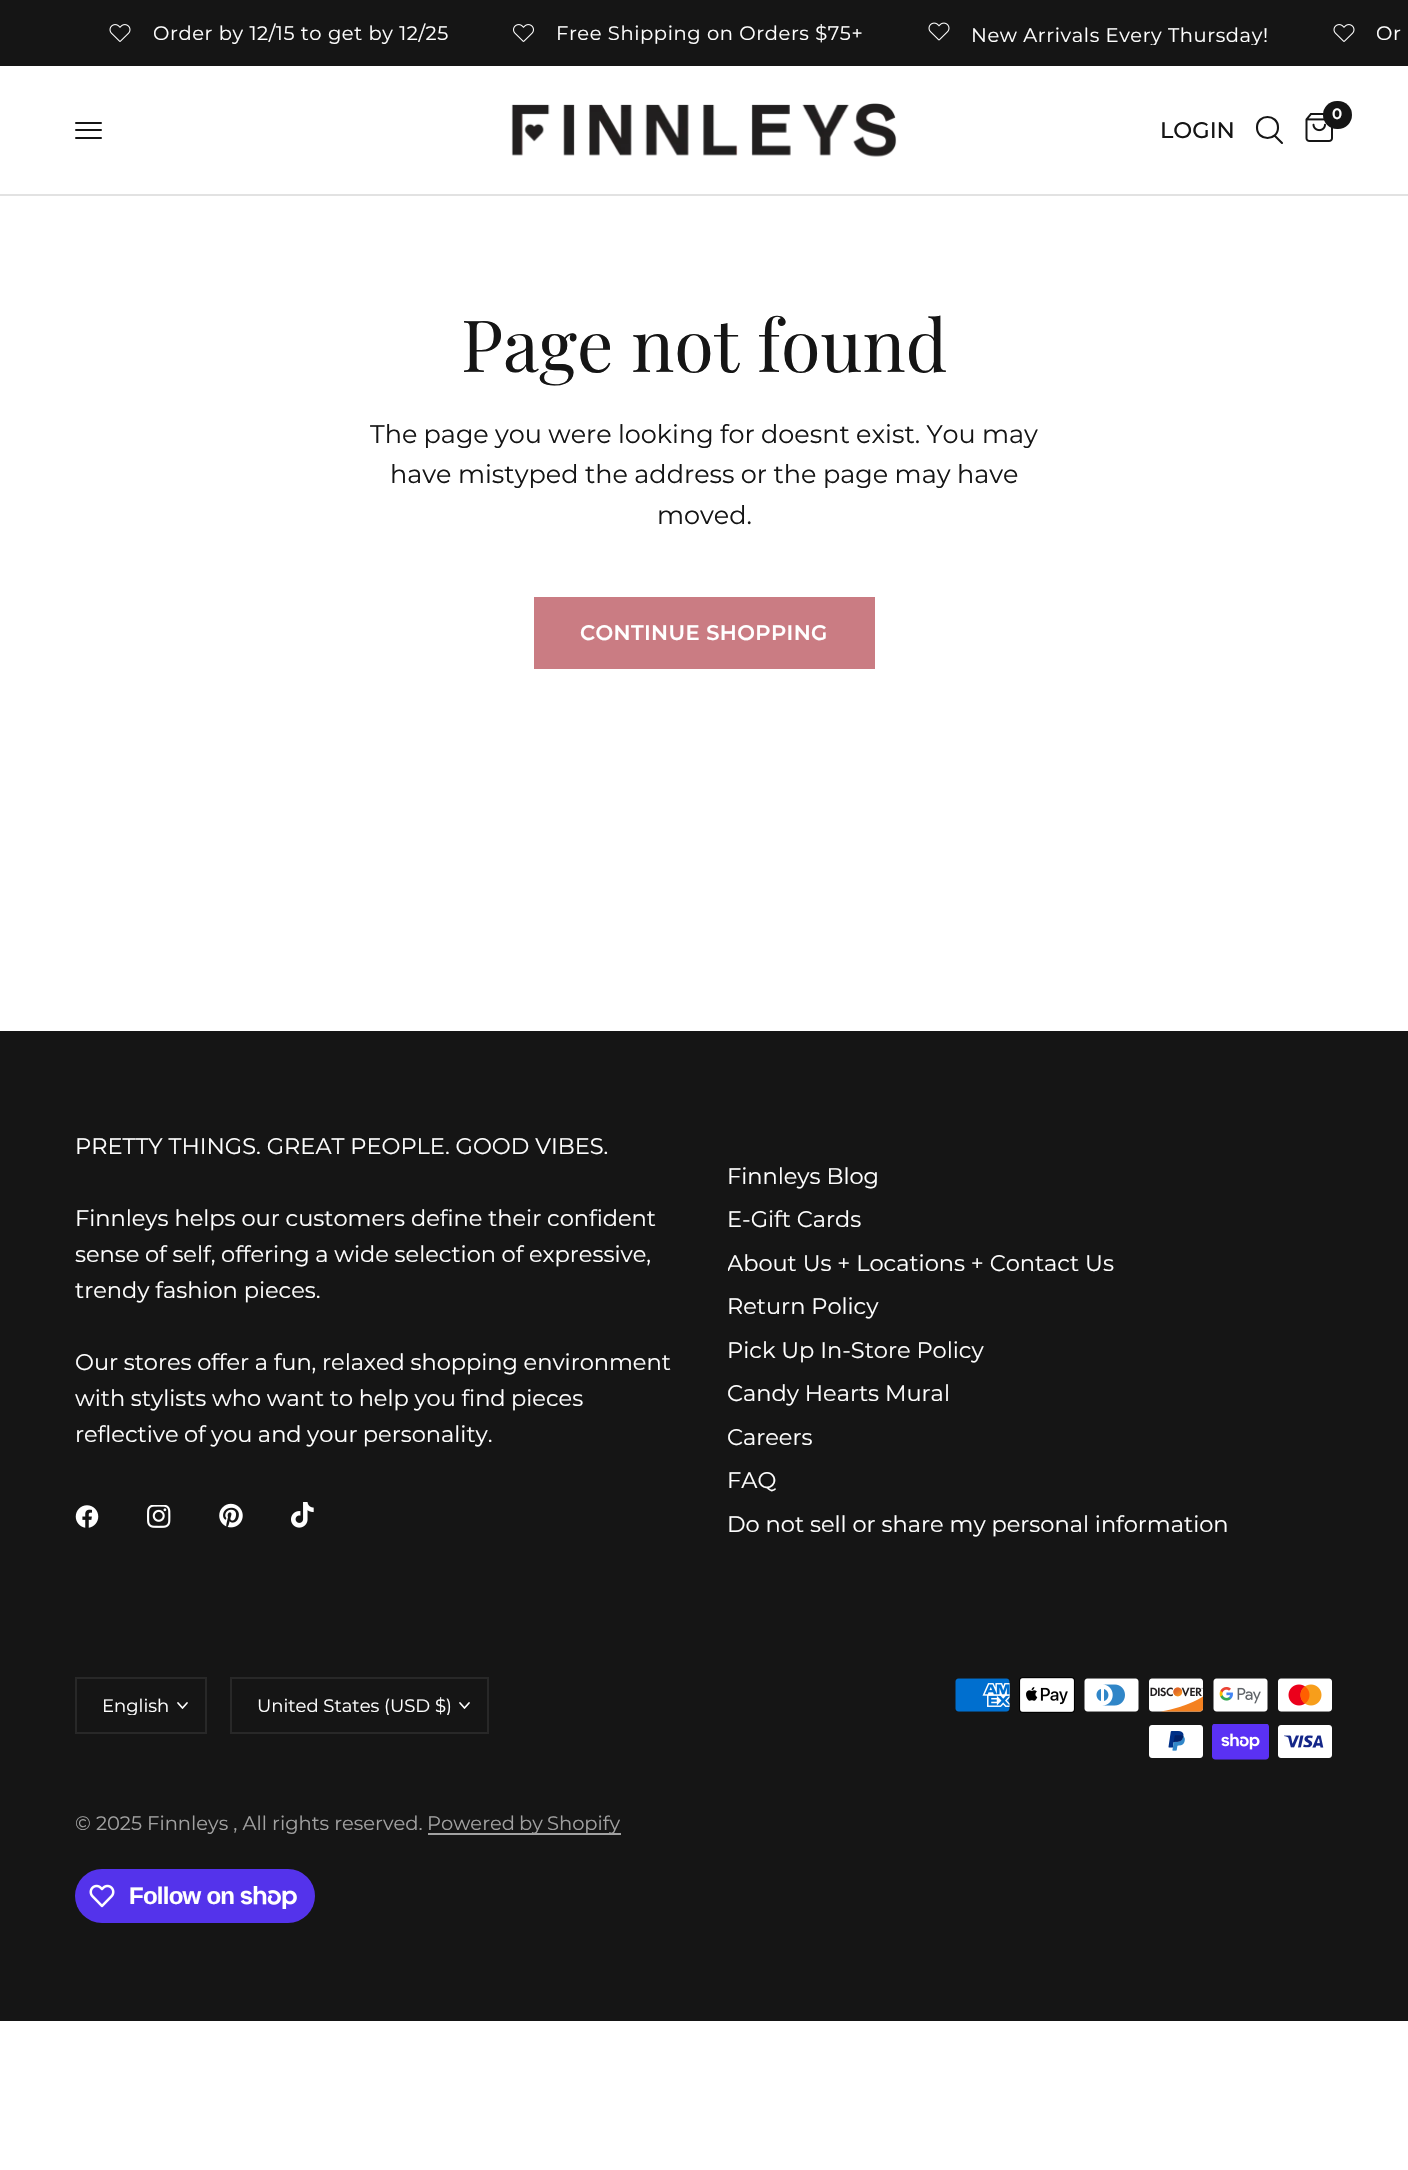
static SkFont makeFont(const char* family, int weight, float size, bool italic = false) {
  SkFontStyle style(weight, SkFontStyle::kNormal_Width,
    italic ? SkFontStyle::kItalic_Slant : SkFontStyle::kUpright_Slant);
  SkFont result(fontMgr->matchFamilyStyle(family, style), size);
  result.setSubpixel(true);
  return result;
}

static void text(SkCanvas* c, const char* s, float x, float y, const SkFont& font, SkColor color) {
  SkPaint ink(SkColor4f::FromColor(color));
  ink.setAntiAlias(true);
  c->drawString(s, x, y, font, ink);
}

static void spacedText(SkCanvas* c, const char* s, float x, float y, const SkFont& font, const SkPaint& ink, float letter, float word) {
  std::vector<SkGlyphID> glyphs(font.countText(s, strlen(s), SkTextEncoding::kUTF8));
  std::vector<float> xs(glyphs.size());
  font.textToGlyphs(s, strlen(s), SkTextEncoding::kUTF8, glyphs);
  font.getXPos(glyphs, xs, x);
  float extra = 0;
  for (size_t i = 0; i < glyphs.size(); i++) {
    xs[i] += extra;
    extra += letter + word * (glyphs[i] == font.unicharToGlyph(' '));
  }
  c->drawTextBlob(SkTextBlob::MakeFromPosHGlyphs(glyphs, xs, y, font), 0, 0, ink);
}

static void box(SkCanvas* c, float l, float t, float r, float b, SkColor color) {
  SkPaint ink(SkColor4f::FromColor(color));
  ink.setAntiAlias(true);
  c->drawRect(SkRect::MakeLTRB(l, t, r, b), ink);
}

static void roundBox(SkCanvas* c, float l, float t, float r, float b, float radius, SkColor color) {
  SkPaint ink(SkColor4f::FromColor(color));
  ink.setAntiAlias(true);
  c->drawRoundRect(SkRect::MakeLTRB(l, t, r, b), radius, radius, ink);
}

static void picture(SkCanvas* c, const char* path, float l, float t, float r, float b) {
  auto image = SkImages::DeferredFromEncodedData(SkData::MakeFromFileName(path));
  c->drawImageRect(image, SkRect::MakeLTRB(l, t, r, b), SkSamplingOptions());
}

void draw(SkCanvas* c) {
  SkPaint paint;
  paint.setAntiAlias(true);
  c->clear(0xffffffff);
  box(c, 0, 0, 1408, 66, 0xff151515);
  picture(c, "img_01.png", 109, 24, 131, 42);
  SkFont face1 = makeFont("Montserrat", 400, 19.5f);
  paint.setColor(0xffffffff);
  spacedText(c, "Order by 12/15 to get by 12/25", 153, 40, face1, paint, 0.6f, 0);
  picture(c, "img_02.png", 513, 24, 534, 42);
  spacedText(c, "Free Shipping on Orders $75+", 556, 40, face1, paint, 0.6f, 0);
  picture(c, "img_03.png", 928, 22, 950, 41);
  c->save();
  c->clipRect(SkRect::MakeLTRB(0, 21, 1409, 45));
  spacedText(c, "New Arrivals Every Thursday!", 971, 42, face1, paint, 0.6f, 0);
  c->restore();
  picture(c, "img_01.png", 1333, 24, 1355, 42);
  spacedText(c, "Or", 1376, 40, face1, paint, 0.6f, 0);
  box(c, 0, 194, 1408, 196, 0xffe2e2e2);
  roundBox(c, 75, 122, 102, 124, 1, 0xff151515);
  roundBox(c, 75, 129, 102, 131, 1, 0xff151515);
  roundBox(c, 75, 137, 102, 139, 1, 0xff151515);
  picture(c, "img_04.png", 511, 103, 897, 157);
  picture(c, "img_05.png", 1305, 113, 1333, 142);
  roundBox(c, 1323, 101, 1352, 129, 14, 0xff151515);
  SkFont face2 = makeFont("Montserrat", 600, 15);
  text(c, "0", 1332, 119, face2, 0xffffffff);
  SkFont face3 = makeFont("Montserrat", 500, 22.5f);
  text(c, "LOGIN", 1160, 138, face3, 0xff151515);
  paint.setStyle(SkPaint::kStroke_Style);
  paint.setStrokeWidth(2.1f);
  paint.setStrokeCap(SkPaint::kRound_Cap);
  paint.setStrokeJoin(SkPaint::kRound_Join);
  paint.setColor(0xff151515);
  c->drawPath(SkPathBuilder().moveTo(1275, 136).lineTo(1282, 143).moveTo(1278, 127.5f).cubicTo(1278, 141.5f, 1257, 141.5f, 1257, 127.5f).cubicTo(1257, 113.5f, 1278, 113.5f, 1278, 127.5f).close().detach(), paint);
  SkFont face4 = makeFont("Playfair Display", 400, 72);
  text(c, "Page not found", 461, 372, face4, 0xff151515);
  SkFont face5 = makeFont("Montserrat", 400, 25.5f);
  paint.setStyle(SkPaint::kFill_Style);
  spacedText(c, "The page you were looking for doesnt exist. You may", 370, 443, face5, paint, 0, -0.4f);
  spacedText(c, "have mistyped the address or the page may have", 390, 483, face5, paint, 0, -0.25f);
  text(c, "moved.", 657, 524, face5, 0xff151515);
  box(c, 534, 597, 875, 669, 0xffca7c83);
  SkFont face6 = makeFont("Montserrat", 600, 21);
  paint.setColor(0xffffffff);
  spacedText(c, "CONTINUE SHOPPING", 580, 640, face6, paint, 0.4f, 0);
  box(c, 0, 1031, 1408, 2021, 0xff151515);
  SkFont face7 = makeFont("Montserrat", 400, 22.5f);
  text(c, "PRETTY THINGS. GREAT PEOPLE. GOOD VIBES.", 75, 1154, face7, 0xffffffff);
  text(c, "Finnleys helps our customers define their confident", 75, 1226, face7, 0xffffffff);
  spacedText(c, "sense of self, offering a wide selection of expressive,", 75, 1262, face7, paint, 0, -0.25f);
  text(c, "trendy fashion pieces.", 75, 1298, face7, 0xffffffff);
  spacedText(c, "Our stores offer a fun, relaxed shopping environment", 75, 1370, face7, paint, 0, -0.25f);
  spacedText(c, "with stylists who want to help you find", 75, 1406, face7, paint, 0, -0.25f);
  text(c, "pieces", 511, 1406, face7, 0xffffffff);
  spacedText(c, "reflective of you and your personality.", 75, 1442, face7, paint, 0, -0.5f);
  picture(c, "img_06.png", 75, 1505, 99, 1528);
  picture(c, "img_07.png", 147, 1505, 171, 1528);
  picture(c, "img_08.png", 219, 1503, 243, 1528);
  picture(c, "img_09.png", 291, 1502, 314, 1528);
  text(c, "Finnleys Blog", 727, 1184, face7, 0xffffffff);
  text(c, "E-Gift Cards", 727, 1227, face7, 0xffffffff);
  c->save();
  c->clipRect(SkRect::MakeLTRB(728, 1158, 1334, 1542));
  text(c, "About Us + Locations + Contact Us", 727, 1271, face7, 0xffffffff);
  c->restore();
  text(c, "Return Policy", 727, 1314, face7, 0xffffffff);
  text(c, "Pick Up In-Store Policy", 727, 1358, face7, 0xffffffff);
  text(c, "Candy Hearts Mural", 727, 1401, face7, 0xffffffff);
  text(c, "Careers", 727, 1445, face7, 0xffffffff);
  text(c, "FAQ", 727, 1488, face7, 0xffffffff);
  text(c, "Do not sell or share my personal information", 727, 1532, face7, 0xffffffff);
  paint.setStyle(SkPaint::kStroke_Style);
  paint.setStrokeWidth(2);
  paint.setStrokeCap(SkPaint::kButt_Cap);
  paint.setStrokeJoin(SkPaint::kMiter_Join);
  paint.setColor(0xff282828);
  c->drawRect(SkRect::MakeLTRB(76, 1678, 206, 1733), paint);
  c->save();
  c->clipRect(SkRect::MakeLTRB(102, 1697, 170, 1715));
  SkFont face8 = makeFont("Montserrat", 400, 18);
  text(c, "English", 102, 1712, face8, 0xffffffff);
  c->restore();
  paint.setStrokeWidth(1.7f);
  paint.setStrokeCap(SkPaint::kRound_Cap);
  paint.setStrokeJoin(SkPaint::kRound_Join);
  paint.setColor(0xffffffff);
  c->drawPath(SkPathBuilder().moveTo(187, 1703).lineTo(182.5f, 1708).lineTo(178, 1703).detach(), paint);
  paint.setStrokeWidth(2);
  paint.setStrokeCap(SkPaint::kButt_Cap);
  paint.setStrokeJoin(SkPaint::kMiter_Join);
  paint.setColor(0xff282828);
  c->drawRect(SkRect::MakeLTRB(231, 1678, 488, 1733), paint);
  c->save();
  c->clipRect(SkRect::MakeLTRB(257, 1697, 452, 1715));
  text(c, "United States (USD $)", 257, 1712, face8, 0xffffffff);
  c->restore();
  paint.setStrokeWidth(1.7f);
  paint.setStrokeCap(SkPaint::kRound_Cap);
  paint.setStrokeJoin(SkPaint::kRound_Join);
  paint.setColor(0xffffffff);
  c->drawPath(SkPathBuilder().moveTo(469, 1703).lineTo(464.5f, 1708).lineTo(460, 1703).detach(), paint);
  picture(c, "img_10.png", 955, 1678, 1010, 1712);
  picture(c, "img_11.png", 1019, 1677, 1075, 1713);
  picture(c, "img_12.png", 1084, 1678, 1139, 1712);
  picture(c, "img_13.png", 1149, 1678, 1204, 1712);
  picture(c, "img_14.png", 1213, 1678, 1268, 1712);
  picture(c, "img_15.png", 1278, 1678, 1332, 1712);
  picture(c, "img_16.png", 1149, 1725, 1203, 1758);
  picture(c, "img_17.png", 1212, 1724, 1269, 1760);
  picture(c, "img_18.png", 1278, 1725, 1332, 1758);
  text(c, "© 2025 Finnleys , All rights reserved.", 75, 1830, face1, 0xffa1a1a1);
  box(c, 428, 1833, 621, 1835, 0xffa1a1a1);
  paint.setStyle(SkPaint::kFill_Style);
  paint.setColor(0xffa1a1a1);
  spacedText(c, "Powered by Shopify", 427, 1830, face1, paint, 0, -1);
  roundBox(c, 75, 1869, 315, 1923, 27, 0xff5433eb);
  picture(c, "img_19.png", 89, 1884, 115, 1908);
  SkFont face9 = makeFont("Liberation Sans", 700, 24);
  paint.setColor(0xffffffff);
  spacedText(c, "Follow on", 129, 1904, face9, paint, -0.75f, 0);
  picture(c, "img_20.png", 240, 1886, 297, 1909);
}
